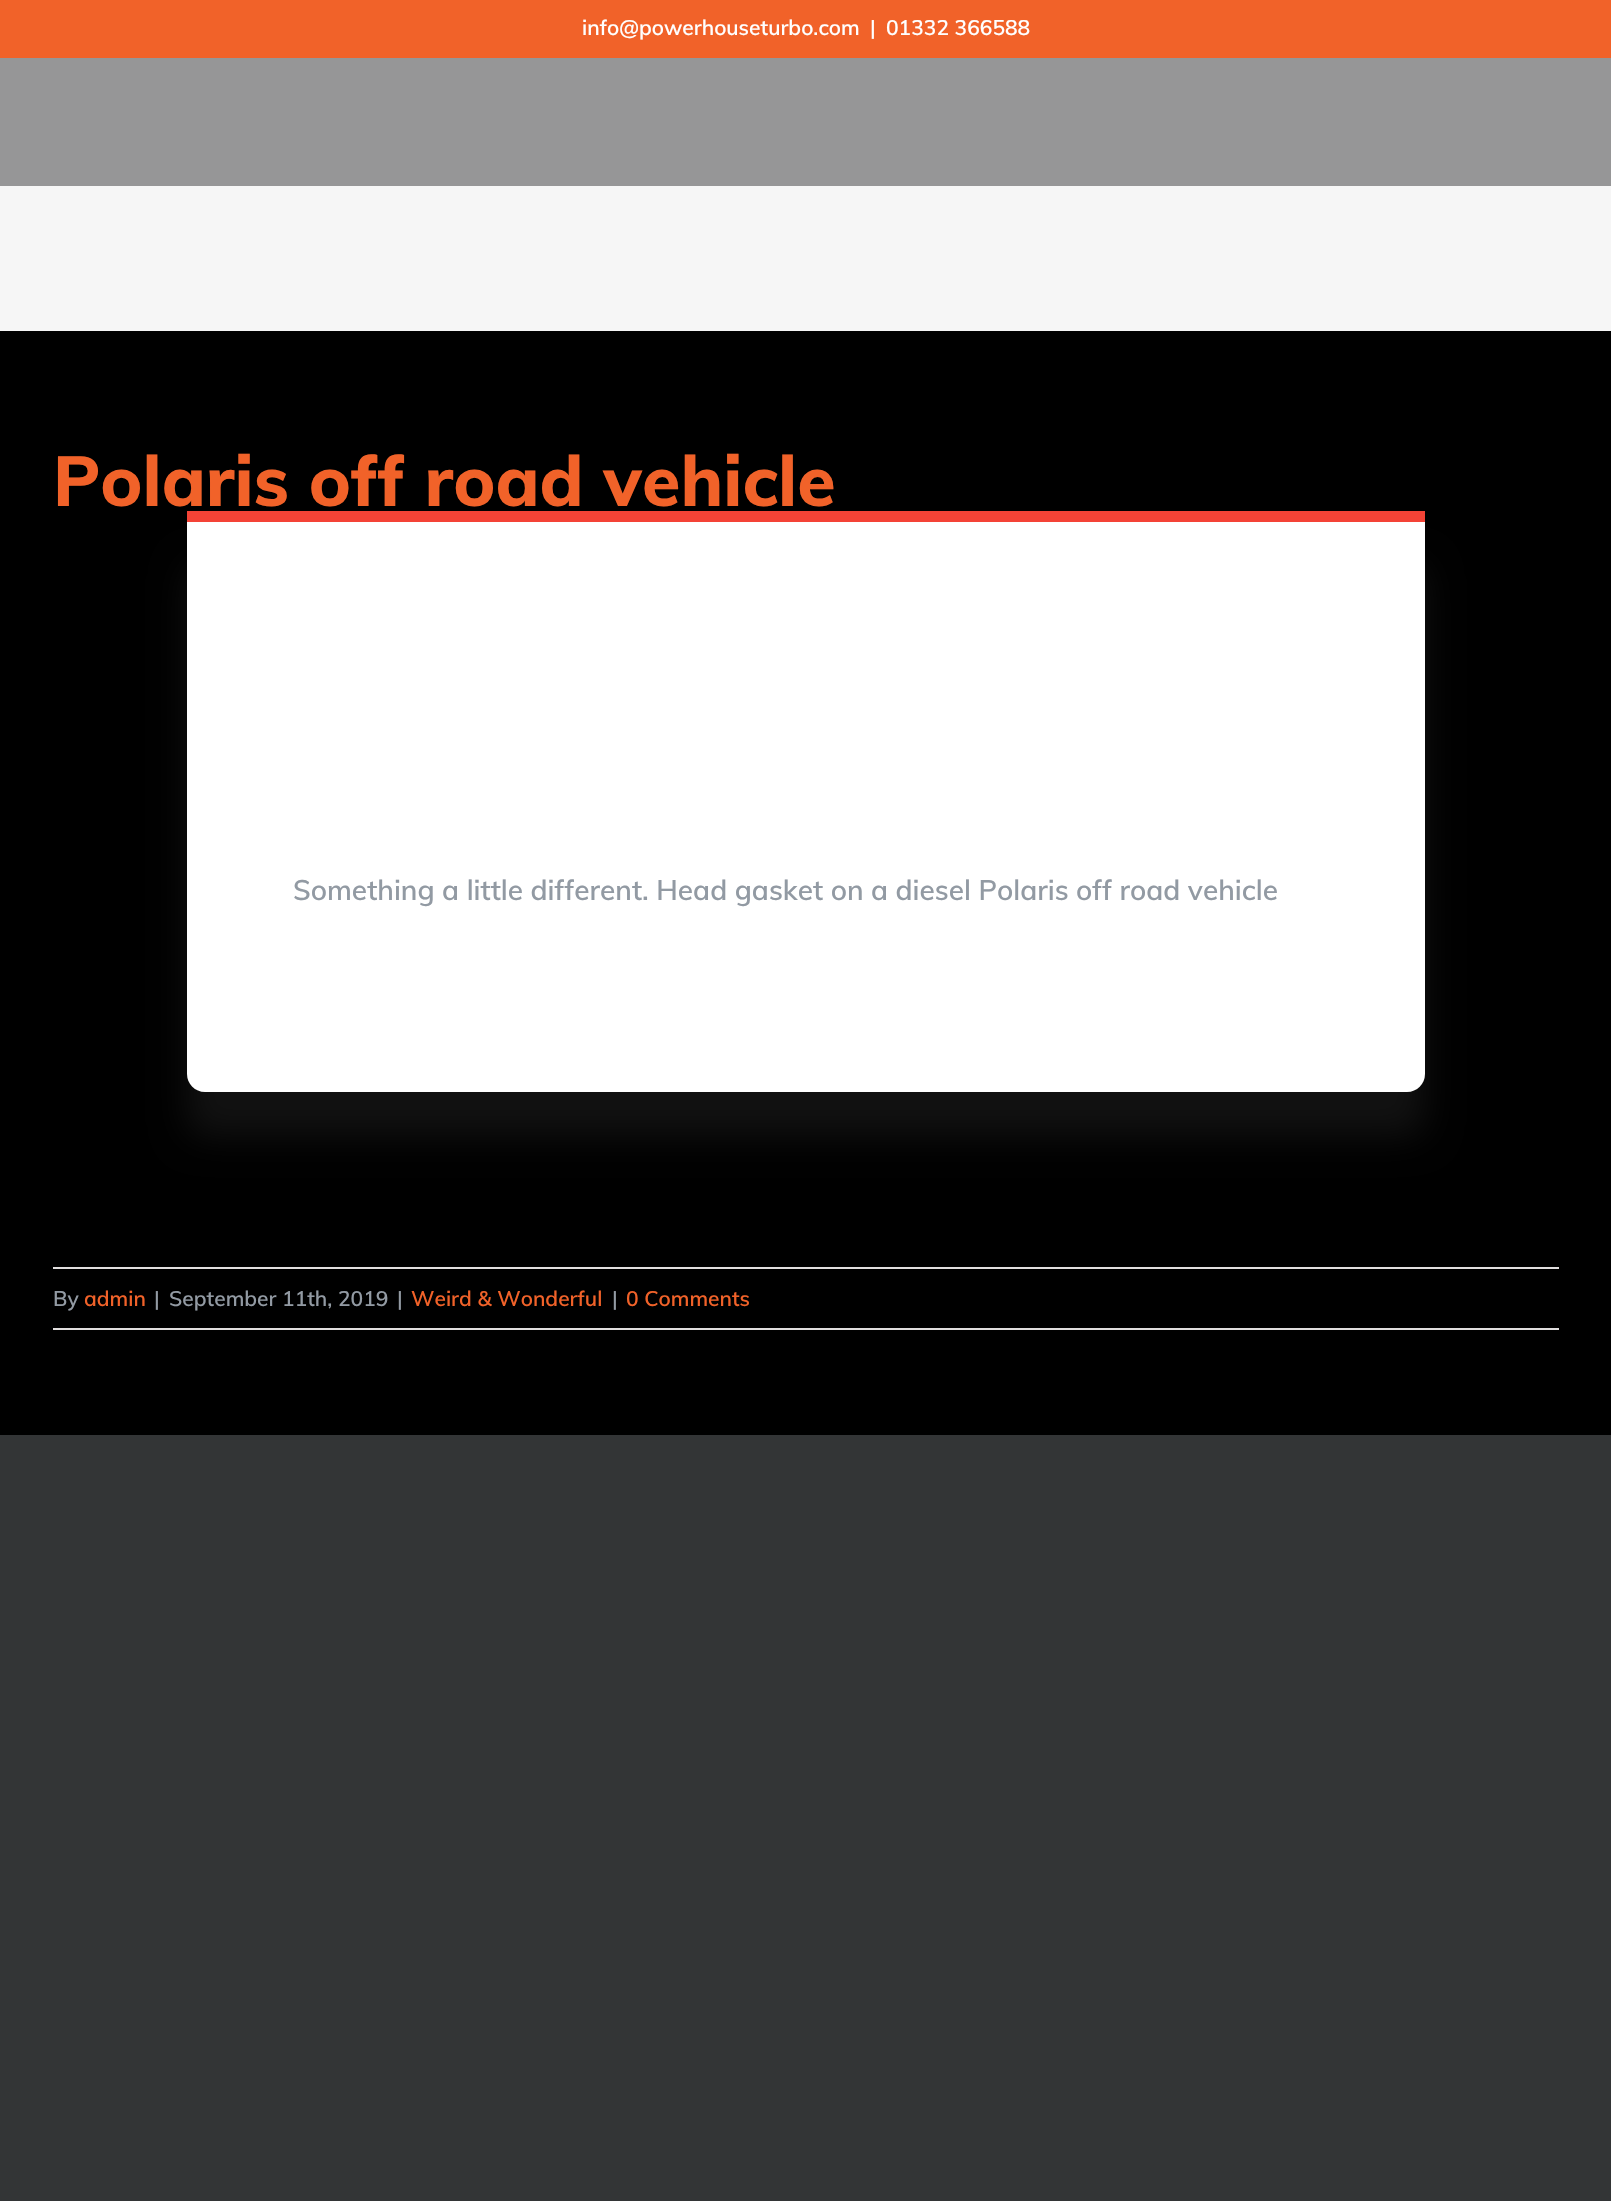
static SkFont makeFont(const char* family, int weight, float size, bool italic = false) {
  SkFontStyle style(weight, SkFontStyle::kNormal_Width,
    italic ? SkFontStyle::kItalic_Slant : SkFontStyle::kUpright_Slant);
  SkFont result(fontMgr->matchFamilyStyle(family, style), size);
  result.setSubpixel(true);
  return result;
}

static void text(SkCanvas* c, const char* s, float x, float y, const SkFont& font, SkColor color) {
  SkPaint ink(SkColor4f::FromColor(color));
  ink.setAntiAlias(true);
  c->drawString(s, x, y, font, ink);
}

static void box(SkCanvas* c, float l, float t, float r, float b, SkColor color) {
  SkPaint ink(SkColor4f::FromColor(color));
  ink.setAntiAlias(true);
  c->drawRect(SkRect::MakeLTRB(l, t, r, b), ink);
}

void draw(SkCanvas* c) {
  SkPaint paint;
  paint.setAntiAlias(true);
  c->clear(0xff000000);
  box(c, 0, 0, 1611, 58, 0xfff16229);
  SkFont face1 = makeFont("Muli", 600, 21);
  text(c, "info@powerhouseturbo.com", 582, 35, face1, 0xffffffff);
  text(c, "|", 870, 35, face1, 0xffffffff);
  text(c, "01332 366588", 886, 35, face1, 0xffffffff);
  box(c, 0, 58, 1611, 186, 0xff969697);
  box(c, 0, 186, 1611, 331, 0xfff6f6f6);
  SkFont face2 = makeFont("Muli", 800, 70);
  text(c, "Polaris off road vehicle", 53, 506, face2, 0xfff16229);
  paint.setColor(0x453d3d3d);
  paint.setMaskFilter(SkMaskFilter::MakeBlur(kNormal_SkBlurStyle, 17.5f));
  c->drawRoundRect(SkRect::MakeLTRB(187, 565, 1425, 1136), 18, 18, paint);
  paint.setMaskFilter(nullptr);
  box(c, 187, 511, 1425, 522, 0xfff44336);
  paint.setColor(0xffffffff);
  c->drawPath(SkPathBuilder().moveTo(187, 522).lineTo(1425, 522).lineTo(1425, 1074).cubicTo(1425, 1084, 1417, 1092, 1407, 1092).lineTo(205, 1092).cubicTo(195, 1092, 187, 1084, 187, 1074).close().detach(), paint);
  SkFont face3 = makeFont("Muli", 600, 28);
  text(c, "Something a little different. Head gasket on a diesel Polaris off road vehicle", 293, 900, face3, 0xff929aa3);
  box(c, 53, 1267, 1559, 1269, 0xffe0dede);
  box(c, 53, 1328, 1559, 1330, 0xffe0dede);
  text(c, "By", 53, 1306, face1, 0xff929aa3);
  text(c, "admin", 84, 1306, face1, 0xfff16229);
  text(c, "|", 154, 1306, face1, 0xff929aa3);
  text(c, "September 11th, 2019", 169, 1306, face1, 0xff929aa3);
  text(c, "|", 397, 1306, face1, 0xff929aa3);
  text(c, "Weird & Wonderful", 411, 1306, face1, 0xfff16229);
  text(c, "|", 612, 1306, face1, 0xff929aa3);
  text(c, "0 Comments", 626, 1306, face1, 0xfff16229);
  box(c, 0, 1435, 1611, 2201, 0xff333536);
}
